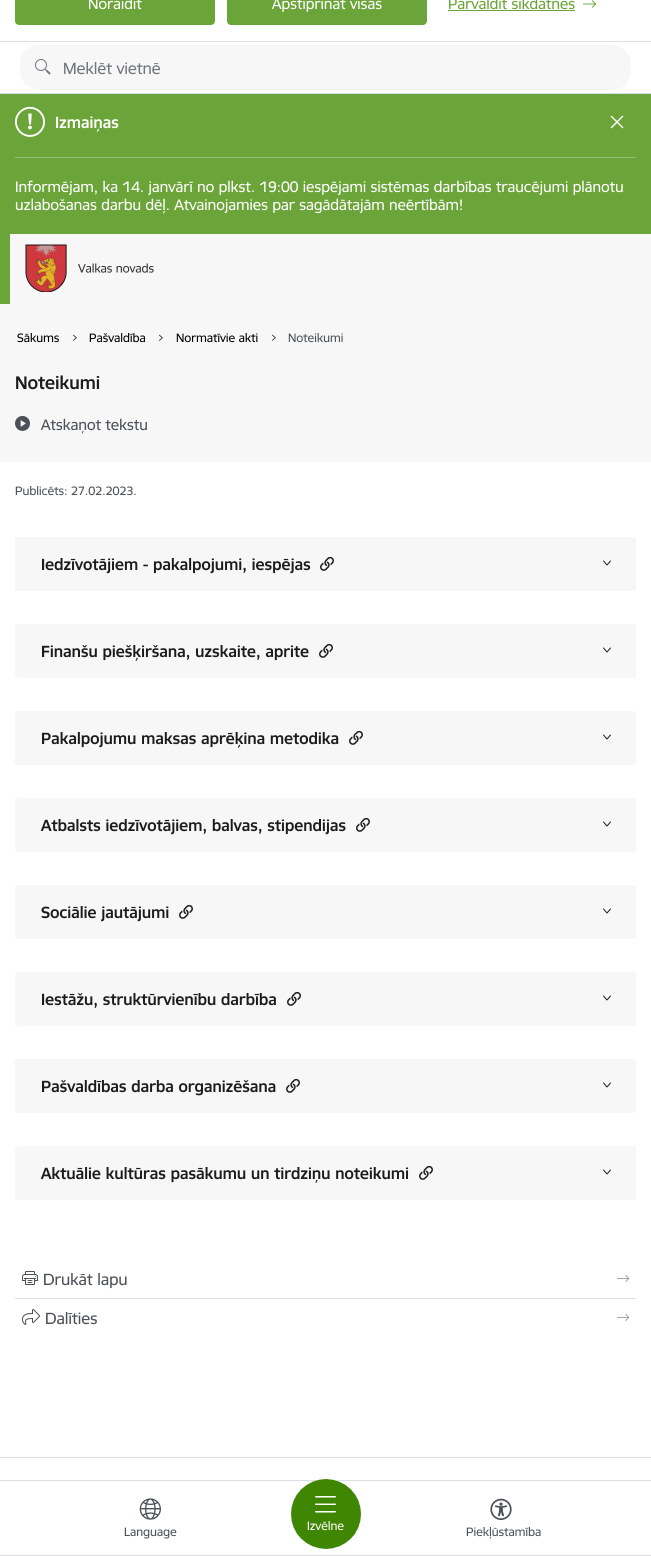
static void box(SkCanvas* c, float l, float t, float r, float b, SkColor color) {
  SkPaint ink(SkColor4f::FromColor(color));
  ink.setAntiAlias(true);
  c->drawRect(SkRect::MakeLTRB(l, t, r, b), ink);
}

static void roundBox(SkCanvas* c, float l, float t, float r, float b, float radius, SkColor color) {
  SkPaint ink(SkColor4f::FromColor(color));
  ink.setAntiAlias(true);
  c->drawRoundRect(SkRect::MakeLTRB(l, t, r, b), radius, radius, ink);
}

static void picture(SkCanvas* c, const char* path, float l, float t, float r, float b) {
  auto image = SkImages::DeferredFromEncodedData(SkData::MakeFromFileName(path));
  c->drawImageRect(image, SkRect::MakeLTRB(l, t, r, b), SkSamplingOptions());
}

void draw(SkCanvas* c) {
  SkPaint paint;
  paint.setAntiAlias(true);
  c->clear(0xffffffff);
  box(c, 0, 41, 651, 42, 0xffdbdee4);
  paint.setColor(0xff6ba539);
  c->drawRoundRect(SkRect::MakeLTRB(15.5f, -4.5f, 214.5f, 24.5f), 3.5f, 3.5f, paint);
  paint.setStyle(SkPaint::kStroke_Style);
  paint.setStrokeWidth(1);
  c->drawRoundRect(SkRect::MakeLTRB(15.5f, -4.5f, 214.5f, 24.5f), 3.5f, 3.5f, paint);
  picture(c, "img_01.png", 89, 0, 142, 10);
  paint.setStyle(SkPaint::kFill_Style);
  c->drawRoundRect(SkRect::MakeLTRB(227.5f, -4.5f, 426.5f, 24.5f), 3.5f, 3.5f, paint);
  paint.setStyle(SkPaint::kStroke_Style);
  c->drawRoundRect(SkRect::MakeLTRB(227.5f, -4.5f, 426.5f, 24.5f), 3.5f, 3.5f, paint);
  picture(c, "img_02.png", 271, 0, 382, 12);
  picture(c, "img_03.png", 449, 0, 575, 10);
  picture(c, "img_04.png", 583, 0, 597, 8);
  box(c, 448, 10, 575, 11, 0xff6ba539);
  box(c, 0, 93, 651, 94, 0xffdbdee4);
  roundBox(c, 20, 45, 631, 90, 19, 0xfff7f7f7);
  picture(c, "img_05.png", 64, 62, 160, 75);
  picture(c, "img_06.png", 35, 59, 51, 75);
  box(c, 0, 1480, 651, 1481, 0xffdbdee4);
  paint.setStyle(SkPaint::kFill_Style);
  paint.setColor(0xff3f8603);
  c->drawCircle(326, 1514, 35, paint);
  picture(c, "img_07.png", 315, 1496, 336, 1513);
  picture(c, "img_08.png", 307, 1521, 344, 1531);
  box(c, 0, 1555, 651, 1556, 0xffdbdee4);
  picture(c, "img_09.png", 139, 1498, 161, 1520);
  picture(c, "img_10.png", 124, 1527, 177, 1539);
  picture(c, "img_11.png", 490, 1498, 512, 1520);
  picture(c, "img_12.png", 466, 1527, 541, 1539);
  box(c, 0, 94, 651, 234, 0xff6ba539);
  box(c, 15, 157, 636, 158, 0xff95be72);
  picture(c, "img_13.png", 15, 106, 45, 137);
  picture(c, "img_14.png", 56, 116, 119, 132);
  picture(c, "img_15.png", 16, 180, 623, 195);
  picture(c, "img_16.png", 15, 198, 462, 214);
  picture(c, "img_17.png", 610, 115, 624, 129);
  box(c, 0, 234, 651, 462, 0xfff7f7f7);
  box(c, 0, 234, 10, 304, 0xff6ba539);
  picture(c, "img_18.png", 25, 244, 154, 292);
  picture(c, "img_19.png", 17, 333, 59, 343);
  picture(c, "img_20.png", 73, 334, 77, 341);
  picture(c, "img_21.png", 89, 333, 145, 343);
  picture(c, "img_20.png", 159, 334, 163, 341);
  picture(c, "img_22.png", 176, 333, 258, 343);
  picture(c, "img_20.png", 272, 334, 276, 341);
  picture(c, "img_23.png", 288, 333, 343, 343);
  picture(c, "img_24.png", 16, 375, 100, 390);
  picture(c, "img_25.png", 15, 415, 30, 431);
  picture(c, "img_26.png", 40, 418, 147, 434);
  picture(c, "img_27.png", 15, 486, 136, 496);
  roundBox(c, 15, 537, 636, 591, 3, 0xfff7f7f7);
  picture(c, "img_28.png", 42, 558, 311, 574);
  picture(c, "img_29.png", 320, 556, 334, 571);
  picture(c, "img_30.png", 603, 560, 611, 566);
  roundBox(c, 15, 624, 636, 678, 3, 0xfff7f7f7);
  picture(c, "img_31.png", 42, 645, 309, 661);
  picture(c, "img_29.png", 319, 643, 333, 658);
  picture(c, "img_30.png", 603, 647, 611, 653);
  roundBox(c, 15, 711, 636, 765, 3, 0xfff7f7f7);
  picture(c, "img_32.png", 42, 732, 339, 748);
  picture(c, "img_29.png", 349, 730, 363, 745);
  picture(c, "img_30.png", 603, 734, 611, 740);
  roundBox(c, 15, 798, 636, 852, 3, 0xfff7f7f7);
  picture(c, "img_33.png", 40, 819, 346, 835);
  picture(c, "img_29.png", 356, 817, 370, 832);
  picture(c, "img_30.png", 603, 821, 611, 827);
  roundBox(c, 15, 885, 636, 939, 3, 0xfff7f7f7);
  picture(c, "img_34.png", 41, 906, 169, 922);
  picture(c, "img_29.png", 179, 904, 193, 919);
  picture(c, "img_30.png", 603, 908, 611, 914);
  roundBox(c, 15, 972, 636, 1026, 3, 0xfff7f7f7);
  picture(c, "img_35.png", 42, 993, 276, 1008);
  picture(c, "img_29.png", 287, 991, 301, 1006);
  picture(c, "img_30.png", 603, 995, 611, 1001);
  roundBox(c, 15, 1059, 636, 1113, 3, 0xfff7f7f7);
  picture(c, "img_36.png", 42, 1080, 276, 1096);
  picture(c, "img_29.png", 286, 1078, 300, 1093);
  picture(c, "img_30.png", 603, 1082, 611, 1088);
  roundBox(c, 15, 1146, 636, 1200, 3, 0xfff7f7f7);
  picture(c, "img_37.png", 40, 1167, 409, 1183);
  picture(c, "img_29.png", 419, 1165, 433, 1180);
  picture(c, "img_30.png", 603, 1169, 611, 1175);
  box(c, 15, 1298, 636, 1299, 0xffdbdee4);
  picture(c, "img_38.png", 22, 1271, 38, 1285);
  picture(c, "img_39.png", 44, 1273, 127, 1289);
  picture(c, "img_40.png", 617, 1275, 630, 1282);
  picture(c, "img_41.png", 22, 1309, 40, 1325);
  picture(c, "img_42.png", 46, 1312, 97, 1325);
  picture(c, "img_40.png", 617, 1314, 630, 1321);
  box(c, 0, 1457, 651, 1458, 0xffdbdee4);
}
